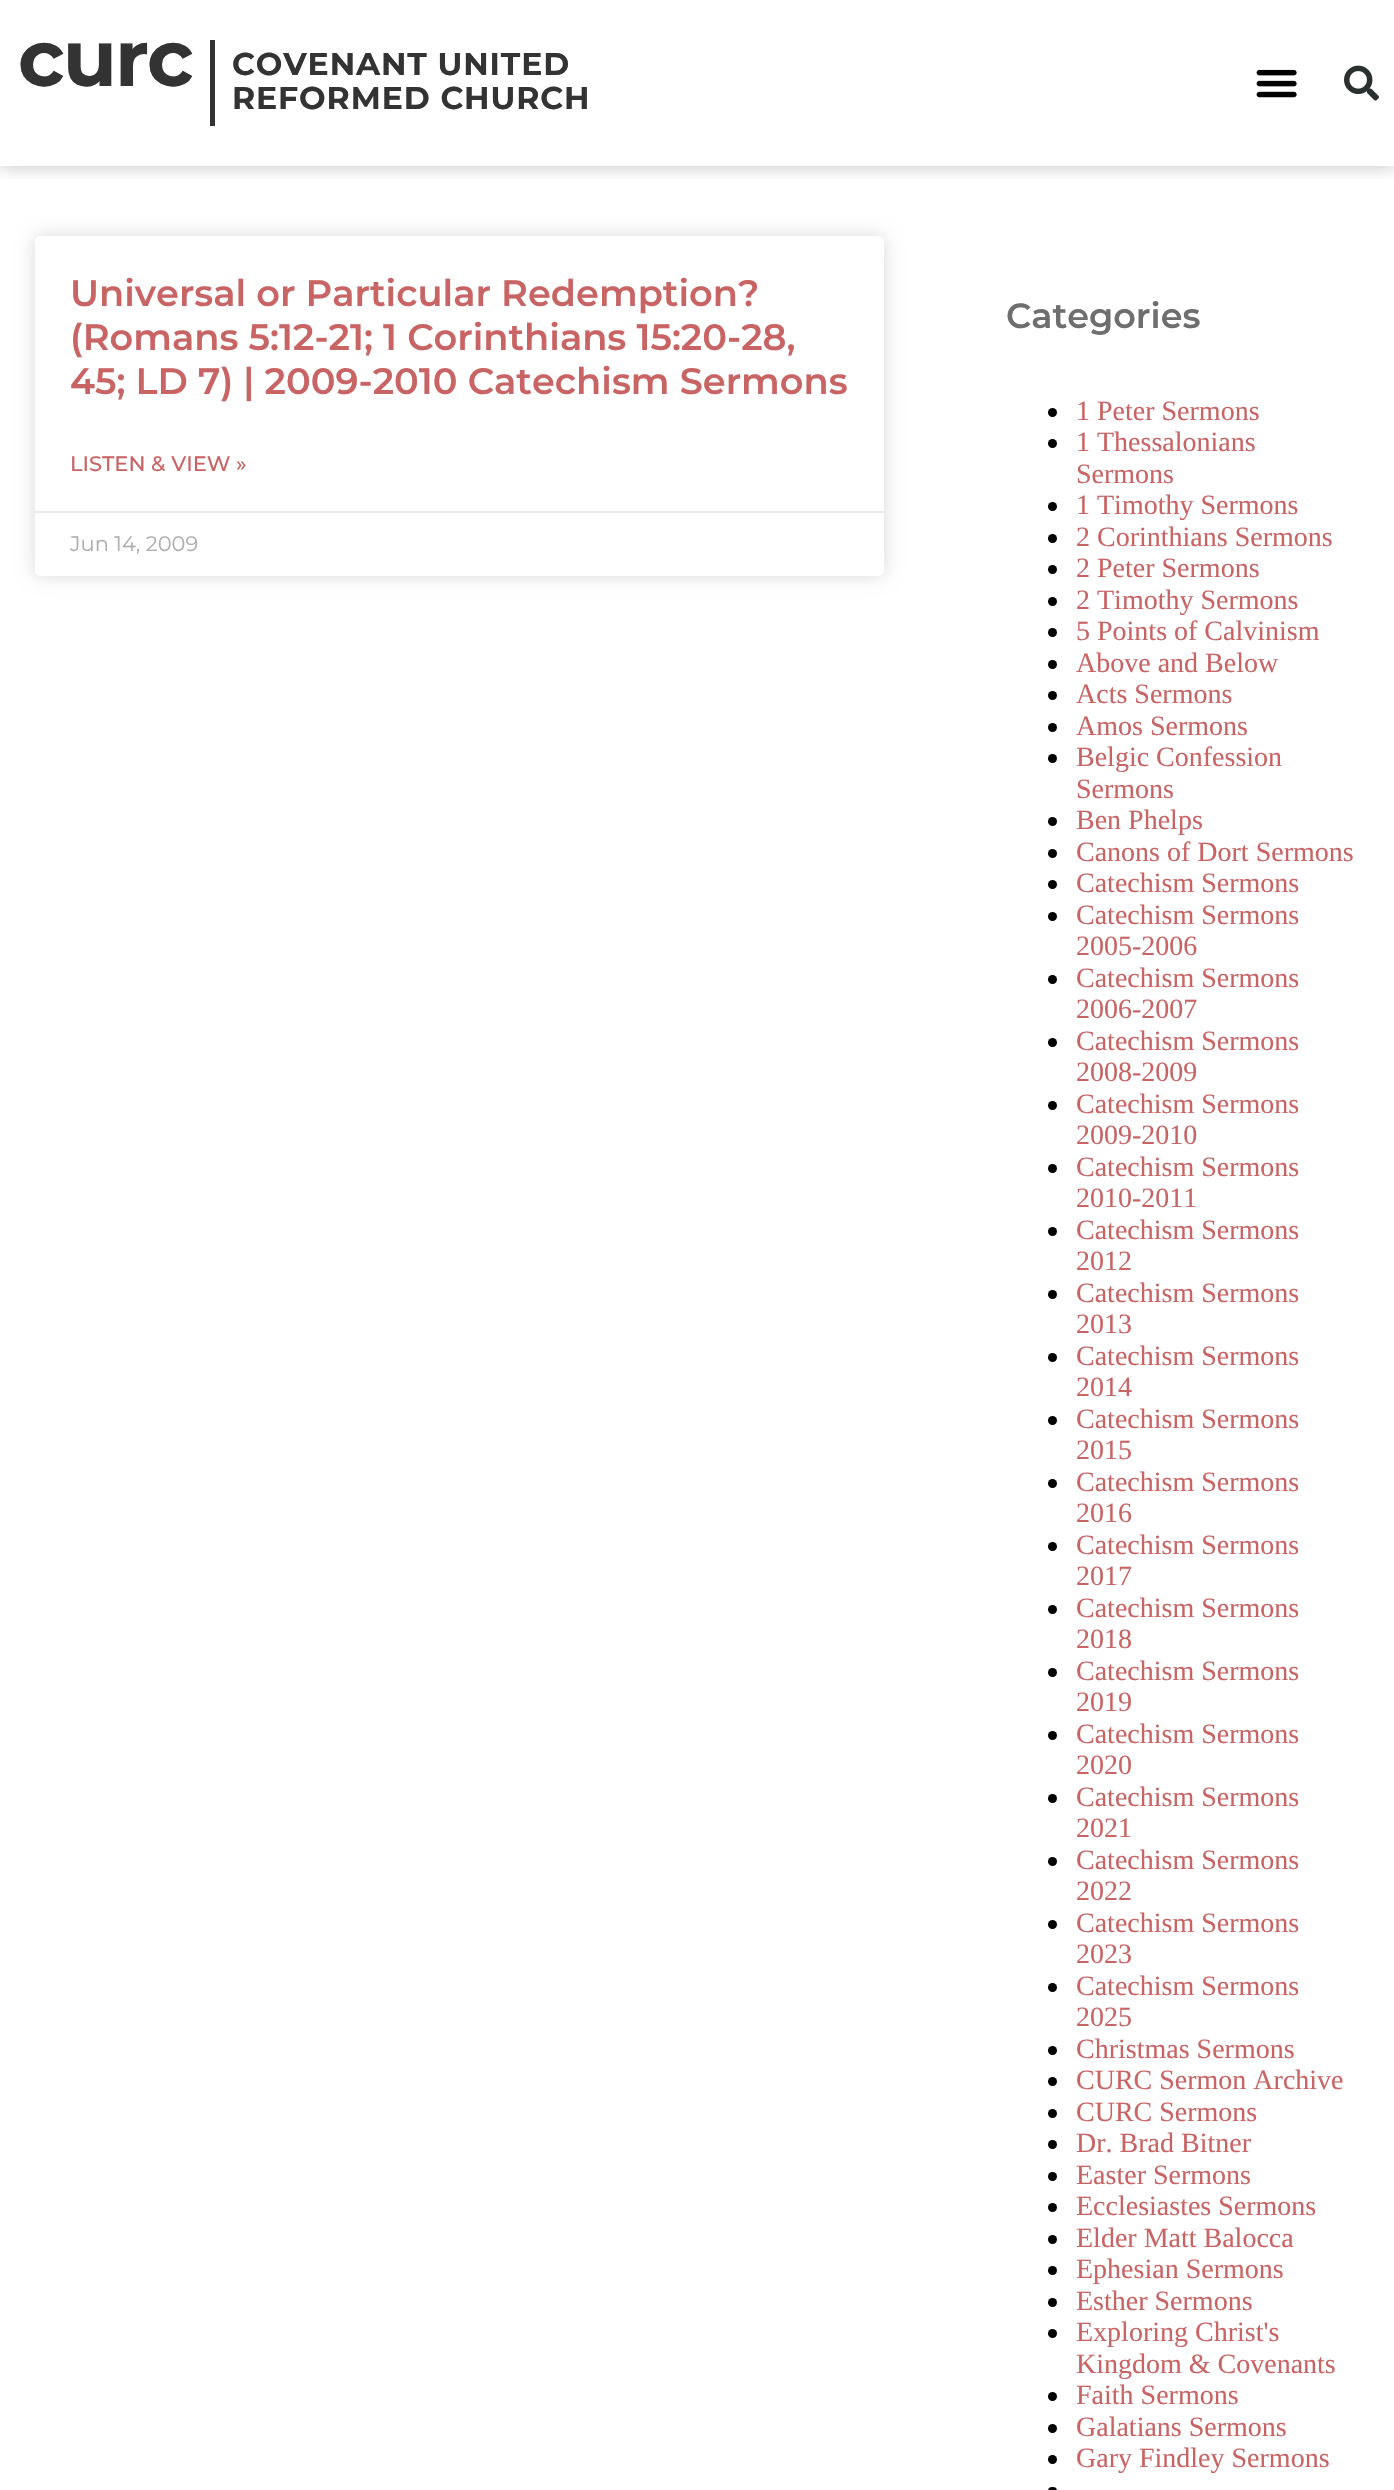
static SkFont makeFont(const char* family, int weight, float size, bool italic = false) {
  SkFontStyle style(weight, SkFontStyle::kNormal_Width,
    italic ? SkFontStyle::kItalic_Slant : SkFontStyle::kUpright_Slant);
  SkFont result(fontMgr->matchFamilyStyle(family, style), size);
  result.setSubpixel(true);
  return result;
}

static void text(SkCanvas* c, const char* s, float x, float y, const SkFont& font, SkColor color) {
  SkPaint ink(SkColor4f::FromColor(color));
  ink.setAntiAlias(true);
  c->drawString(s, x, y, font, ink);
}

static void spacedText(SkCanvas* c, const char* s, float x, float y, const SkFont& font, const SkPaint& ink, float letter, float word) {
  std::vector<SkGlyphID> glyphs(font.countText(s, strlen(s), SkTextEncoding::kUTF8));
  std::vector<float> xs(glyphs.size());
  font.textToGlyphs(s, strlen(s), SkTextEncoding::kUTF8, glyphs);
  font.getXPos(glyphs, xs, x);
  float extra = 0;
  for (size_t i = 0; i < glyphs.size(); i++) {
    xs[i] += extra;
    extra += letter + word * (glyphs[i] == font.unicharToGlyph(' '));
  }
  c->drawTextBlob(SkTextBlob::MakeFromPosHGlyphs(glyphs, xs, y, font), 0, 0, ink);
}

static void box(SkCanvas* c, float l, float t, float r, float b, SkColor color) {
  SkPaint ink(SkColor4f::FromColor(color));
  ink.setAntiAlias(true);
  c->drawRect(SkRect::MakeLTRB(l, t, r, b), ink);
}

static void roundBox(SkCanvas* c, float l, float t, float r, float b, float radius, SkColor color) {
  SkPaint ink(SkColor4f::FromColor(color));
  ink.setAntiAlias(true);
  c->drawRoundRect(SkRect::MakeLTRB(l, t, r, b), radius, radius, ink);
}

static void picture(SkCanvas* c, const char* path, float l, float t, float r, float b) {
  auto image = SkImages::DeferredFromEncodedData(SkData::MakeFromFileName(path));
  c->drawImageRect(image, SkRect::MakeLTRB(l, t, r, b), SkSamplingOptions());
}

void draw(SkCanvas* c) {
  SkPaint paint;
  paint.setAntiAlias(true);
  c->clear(0xffffffff);
  c->save();
  c->clipRect(SkRect::MakeLTRB(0, 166, 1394, 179));
  paint.setColor(0x40000000);
  paint.setMaskFilter(SkMaskFilter::MakeBlur(kNormal_SkBlurStyle, 9));
  c->drawRect(SkRect::MakeLTRB(0, 0, 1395, 166), paint);
  paint.setMaskFilter(nullptr);
  c->restore();
  SkFont face1 = makeFont("Montserrat", 700, 79);
  paint.setColor(0xff333333);
  spacedText(c, "curc", 18, 86, face1, paint, -2, 0);
  box(c, 210, 40, 215, 126, 0xff333333);
  SkFont face2 = makeFont("Montserrat", 700, 31.5f);
  spacedText(c, "COVENANT UNITED", 232, 75, face2, paint, 0.9f, 0);
  spacedText(c, "REFORMED CHURCH", 232, 109, face2, paint, 0.9f, 0);
  picture(c, "img_01.png", 1256, 69, 1297, 98);
  picture(c, "img_02.png", 1344, 65, 1379, 101);
  paint.setColor(0x26000000);
  paint.setMaskFilter(SkMaskFilter::MakeBlur(kNormal_SkBlurStyle, 9));
  c->drawRoundRect(SkRect::MakeLTRB(35, 236, 884, 576), 5, 5, paint);
  paint.setMaskFilter(nullptr);
  roundBox(c, 35, 236, 884, 576, 5, 0xffffffff);
  SkFont face3 = makeFont("Montserrat", 600, 36.75f);
  text(c, "Universal or Particular Redemption?", 70, 306, face3, 0xffc86464);
  text(c, "(Romans 5:12-21; 1 Corinthians 15:20-28,", 70, 350, face3, 0xffc86464);
  text(c, "45; LD 7) | 2009-2010 Catechism Sermons", 70, 394, face3, 0xffc86464);
  SkFont face4 = makeFont("Montserrat", 500, 21);
  text(c, "LISTEN & VIEW »", 70, 471, face4, 0xffc86464);
  box(c, 35, 511, 884, 513, 0xffeaeaea);
  SkFont face5 = makeFont("Montserrat", 400, 21);
  text(c, "Jun 14, 2009", 70, 551, face5, 0xffadadad);
  SkFont face6 = makeFont("Montserrat", 600, 35);
  text(c, "Categories", 1006, 328, face6, 0xff6e6e6e);
  paint.setColor(0xff000000);
  c->drawCircle(1052.5f, 412.5f, 4.5f, paint);
  SkFont face7 = makeFont("Liberation Serif", 400, 28);
  text(c, "1 Peter Sermons", 1076, 420, face7, 0xffc86464);
  c->drawCircle(1052.5f, 443.5f, 4.5f, paint);
  text(c, "1 Thessalonians", 1076, 451, face7, 0xffc86464);
  text(c, "Sermons", 1076, 483, face7, 0xffc86464);
  c->drawCircle(1052.5f, 506.5f, 4.5f, paint);
  text(c, "1 Timothy Sermons", 1076, 514, face7, 0xffc86464);
  c->drawCircle(1052.5f, 538.5f, 4.5f, paint);
  text(c, "2 Corinthians Sermons", 1076, 546, face7, 0xffc86464);
  c->drawCircle(1052.5f, 569.5f, 4.5f, paint);
  text(c, "2 Peter Sermons", 1076, 577, face7, 0xffc86464);
  c->drawCircle(1052.5f, 601.5f, 4.5f, paint);
  text(c, "2 Timothy Sermons", 1076, 609, face7, 0xffc86464);
  c->drawCircle(1052.5f, 632.5f, 4.5f, paint);
  text(c, "5 Points of Calvinism", 1076, 640, face7, 0xffc86464);
  c->drawCircle(1052.5f, 664.5f, 4.5f, paint);
  text(c, "Above and Below", 1076, 672, face7, 0xffc86464);
  c->drawCircle(1052.5f, 695.5f, 4.5f, paint);
  text(c, "Acts Sermons", 1076, 703, face7, 0xffc86464);
  c->drawCircle(1052.5f, 727.5f, 4.5f, paint);
  text(c, "Amos Sermons", 1076, 735, face7, 0xffc86464);
  c->drawCircle(1052.5f, 758.5f, 4.5f, paint);
  text(c, "Belgic Confession", 1076, 766, face7, 0xffc86464);
  text(c, "Sermons", 1076, 798, face7, 0xffc86464);
  c->drawCircle(1052.5f, 821.5f, 4.5f, paint);
  text(c, "Ben Phelps", 1076, 829, face7, 0xffc86464);
  c->drawCircle(1052.5f, 853.5f, 4.5f, paint);
  text(c, "Canons of Dort Sermons", 1076, 861, face7, 0xffc86464);
  c->drawCircle(1052.5f, 884.5f, 4.5f, paint);
  text(c, "Catechism Sermons", 1076, 892, face7, 0xffc86464);
  c->drawCircle(1052.5f, 916.5f, 4.5f, paint);
  text(c, "Catechism Sermons", 1076, 924, face7, 0xffc86464);
  text(c, "2005-2006", 1076, 955, face7, 0xffc86464);
  c->drawCircle(1052.5f, 979.5f, 4.5f, paint);
  text(c, "Catechism Sermons", 1076, 987, face7, 0xffc86464);
  text(c, "2006-2007", 1076, 1018, face7, 0xffc86464);
  c->drawCircle(1052.5f, 1042.5f, 4.5f, paint);
  text(c, "Catechism Sermons", 1076, 1050, face7, 0xffc86464);
  text(c, "2008-2009", 1076, 1081, face7, 0xffc86464);
  c->drawCircle(1052.5f, 1105.5f, 4.5f, paint);
  text(c, "Catechism Sermons", 1076, 1113, face7, 0xffc86464);
  text(c, "2009-2010", 1076, 1144, face7, 0xffc86464);
  c->drawCircle(1052.5f, 1168.5f, 4.5f, paint);
  text(c, "Catechism Sermons", 1076, 1176, face7, 0xffc86464);
  text(c, "2010-2011", 1076, 1207, face7, 0xffc86464);
  c->drawCircle(1052.5f, 1231.5f, 4.5f, paint);
  text(c, "Catechism Sermons", 1076, 1239, face7, 0xffc86464);
  text(c, "2012", 1076, 1270, face7, 0xffc86464);
  c->drawCircle(1052.5f, 1294.5f, 4.5f, paint);
  text(c, "Catechism Sermons", 1076, 1302, face7, 0xffc86464);
  text(c, "2013", 1076, 1333, face7, 0xffc86464);
  c->drawCircle(1052.5f, 1357.5f, 4.5f, paint);
  text(c, "Catechism Sermons", 1076, 1365, face7, 0xffc86464);
  text(c, "2014", 1076, 1396, face7, 0xffc86464);
  c->drawCircle(1052.5f, 1420.5f, 4.5f, paint);
  text(c, "Catechism Sermons", 1076, 1428, face7, 0xffc86464);
  text(c, "2015", 1076, 1459, face7, 0xffc86464);
  c->drawCircle(1052.5f, 1483.5f, 4.5f, paint);
  text(c, "Catechism Sermons", 1076, 1491, face7, 0xffc86464);
  text(c, "2016", 1076, 1522, face7, 0xffc86464);
  c->drawCircle(1052.5f, 1546.5f, 4.5f, paint);
  text(c, "Catechism Sermons", 1076, 1554, face7, 0xffc86464);
  text(c, "2017", 1076, 1585, face7, 0xffc86464);
  c->drawCircle(1052.5f, 1609.5f, 4.5f, paint);
  text(c, "Catechism Sermons", 1076, 1617, face7, 0xffc86464);
  text(c, "2018", 1076, 1648, face7, 0xffc86464);
  c->drawCircle(1052.5f, 1672.5f, 4.5f, paint);
  text(c, "Catechism Sermons", 1076, 1680, face7, 0xffc86464);
  text(c, "2019", 1076, 1711, face7, 0xffc86464);
  c->drawCircle(1052.5f, 1735.5f, 4.5f, paint);
  text(c, "Catechism Sermons", 1076, 1743, face7, 0xffc86464);
  text(c, "2020", 1076, 1774, face7, 0xffc86464);
  c->drawCircle(1052.5f, 1798.5f, 4.5f, paint);
  text(c, "Catechism Sermons", 1076, 1806, face7, 0xffc86464);
  text(c, "2021", 1076, 1837, face7, 0xffc86464);
  c->drawCircle(1052.5f, 1861.5f, 4.5f, paint);
  text(c, "Catechism Sermons", 1076, 1869, face7, 0xffc86464);
  text(c, "2022", 1076, 1900, face7, 0xffc86464);
  c->drawCircle(1052.5f, 1924.5f, 4.5f, paint);
  text(c, "Catechism Sermons", 1076, 1932, face7, 0xffc86464);
  text(c, "2023", 1076, 1963, face7, 0xffc86464);
  c->drawCircle(1052.5f, 1987.5f, 4.5f, paint);
  text(c, "Catechism Sermons", 1076, 1995, face7, 0xffc86464);
  text(c, "2025", 1076, 2026, face7, 0xffc86464);
  c->drawCircle(1052.5f, 2050.5f, 4.5f, paint);
  text(c, "Christmas Sermons", 1076, 2058, face7, 0xffc86464);
  c->drawCircle(1052.5f, 2081.5f, 4.5f, paint);
  text(c, "CURC Sermon Archive", 1076, 2089, face7, 0xffc86464);
  c->drawCircle(1052.5f, 2113.5f, 4.5f, paint);
  text(c, "CURC Sermons", 1076, 2121, face7, 0xffc86464);
  c->drawCircle(1052.5f, 2144.5f, 4.5f, paint);
  text(c, "Dr. Brad Bitner", 1076, 2152, face7, 0xffc86464);
  c->drawCircle(1052.5f, 2176.5f, 4.5f, paint);
  text(c, "Easter Sermons", 1076, 2184, face7, 0xffc86464);
  c->drawCircle(1052.5f, 2207.5f, 4.5f, paint);
  text(c, "Ecclesiastes Sermons", 1076, 2215, face7, 0xffc86464);
  c->drawCircle(1052.5f, 2239.5f, 4.5f, paint);
  text(c, "Elder Matt Balocca", 1076, 2247, face7, 0xffc86464);
  c->drawCircle(1052.5f, 2270.5f, 4.5f, paint);
  text(c, "Ephesian Sermons", 1076, 2278, face7, 0xffc86464);
  c->drawCircle(1052.5f, 2302.5f, 4.5f, paint);
  text(c, "Esther Sermons", 1076, 2310, face7, 0xffc86464);
  c->drawCircle(1052.5f, 2333.5f, 4.5f, paint);
  text(c, "Exploring Christ's", 1076, 2341, face7, 0xffc86464);
  text(c, "Kingdom & Covenants", 1076, 2373, face7, 0xffc86464);
  c->drawCircle(1052.5f, 2396.5f, 4.5f, paint);
  text(c, "Faith Sermons", 1076, 2404, face7, 0xffc86464);
  c->drawCircle(1052.5f, 2428.5f, 4.5f, paint);
  text(c, "Galatians Sermons", 1076, 2436, face7, 0xffc86464);
  c->drawCircle(1052.5f, 2459.5f, 4.5f, paint);
  text(c, "Gary Findley Sermons", 1076, 2467, face7, 0xffc86464);
  roundBox(c, 1048, 2487, 1057, 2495, 4.5f, 0xff000000);
}
